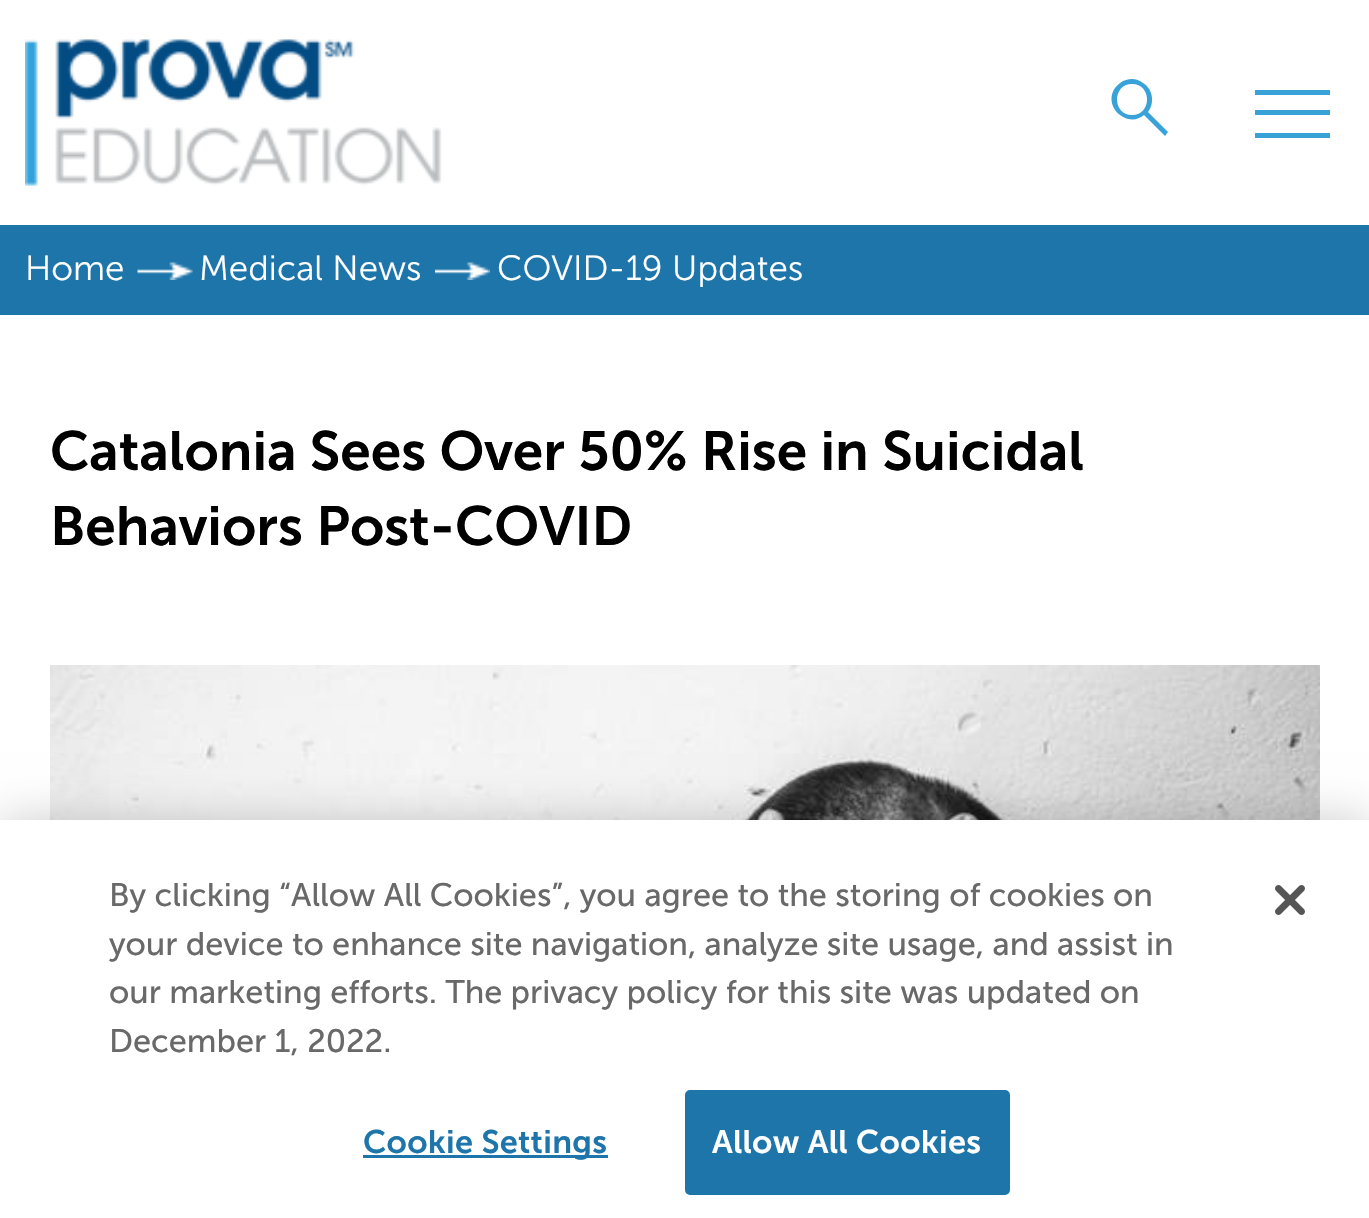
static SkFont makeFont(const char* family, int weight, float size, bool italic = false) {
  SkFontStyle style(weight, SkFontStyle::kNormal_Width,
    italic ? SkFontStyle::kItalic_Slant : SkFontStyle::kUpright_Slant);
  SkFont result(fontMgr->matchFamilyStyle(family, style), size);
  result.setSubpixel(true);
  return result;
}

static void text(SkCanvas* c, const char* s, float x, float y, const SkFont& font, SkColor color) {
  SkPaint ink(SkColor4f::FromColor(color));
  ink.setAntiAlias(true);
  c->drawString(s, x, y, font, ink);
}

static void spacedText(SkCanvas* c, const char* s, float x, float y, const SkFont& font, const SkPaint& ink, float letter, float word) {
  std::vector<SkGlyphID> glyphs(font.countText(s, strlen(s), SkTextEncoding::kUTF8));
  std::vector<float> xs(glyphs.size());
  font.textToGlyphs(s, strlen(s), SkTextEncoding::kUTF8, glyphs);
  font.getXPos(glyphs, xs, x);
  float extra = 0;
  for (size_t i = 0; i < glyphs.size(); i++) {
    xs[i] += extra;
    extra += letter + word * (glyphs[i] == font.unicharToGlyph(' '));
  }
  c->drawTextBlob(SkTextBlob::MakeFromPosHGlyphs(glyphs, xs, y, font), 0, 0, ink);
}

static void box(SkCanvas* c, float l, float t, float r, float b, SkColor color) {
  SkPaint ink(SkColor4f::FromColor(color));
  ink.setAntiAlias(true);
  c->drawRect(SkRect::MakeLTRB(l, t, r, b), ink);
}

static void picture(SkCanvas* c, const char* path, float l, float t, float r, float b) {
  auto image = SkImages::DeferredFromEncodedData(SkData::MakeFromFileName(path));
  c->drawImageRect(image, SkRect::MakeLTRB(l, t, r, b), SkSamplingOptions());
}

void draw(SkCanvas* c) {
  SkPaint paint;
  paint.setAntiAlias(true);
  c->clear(0xffffffff);
  picture(c, "img_01.png", 25, 39, 442, 186);
  paint.setColor(0xff39a2d9);
  c->drawPath(SkPathBuilder().moveTo(1165, 136).lineTo(1144, 115).cubicTo(1128, 129, 1102, 107, 1115, 88).cubicTo(1118, 84, 1122, 81, 1126, 80).cubicTo(1132, 78, 1138, 79, 1143, 83).cubicTo(1153, 89, 1155, 103, 1148, 112).lineTo(1168, 132).close().moveTo(1132, 115).cubicTo(1152, 115, 1152, 84, 1132, 84).cubicTo(1112, 84, 1112, 115, 1132, 115).close().detach(), paint);
  box(c, 1255, 90, 1330, 95, 0xff39a2d9);
  box(c, 1255, 110, 1330, 115, 0xff39a2d9);
  box(c, 1255, 133, 1330, 138, 0xff39a2d9);
  box(c, 0, 225, 1369, 315, 0xff1e75aa);
  SkFont face1 = makeFont("Museo Sans", 300, 35);
  text(c, "Home", 25, 280, face1, 0xffffffff);
  picture(c, "img_02.png", 137, 262, 193, 280);
  text(c, "Medical News", 199, 280, face1, 0xffffffff);
  picture(c, "img_03.png", 435, 262, 490, 280);
  text(c, "COVID-19 Updates", 497, 280, face1, 0xffffffff);
  SkFont face2 = makeFont("Museo Sans", 600, 55);
  text(c, "Catalonia Sees Over 50% Rise in Suicidal", 50, 470, face2, 0xff000000);
  text(c, "Behaviors Post-COVID", 50, 545, face2, 0xff000000);
  picture(c, "img_04.png", 50, 665, 1320, 820);
  paint.setColor(0x33000000);
  paint.setMaskFilter(SkMaskFilter::MakeBlur(kNormal_SkBlurStyle, 22.5f));
  c->drawRect(SkRect::MakeLTRB(0, 820, 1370, 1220), paint);
  paint.setMaskFilter(nullptr);
  box(c, 0, 820, 1369, 1218, 0xffffffff);
  SkFont face3 = makeFont("Museo Sans", 400, 32.5f);
  text(c, "By clicking “Allow All Cookies”, you agree to the storing of cookies on", 109, 906, face3, 0xff696969);
  text(c, "your device to enhance site navigation, analyze site usage, and assist in", 109, 955, face3, 0xff696969);
  text(c, "our marketing efforts. The privacy policy for this site was updated on", 109, 1003, face3, 0xff696969);
  text(c, "December 1, 2022.", 109, 1052, face3, 0xff696969);
  box(c, 363, 1155, 608, 1158, 0xff1e75aa);
  SkFont face4 = makeFont("Museo Sans", 600, 32.5f);
  paint.setColor(0xff1e75aa);
  spacedText(c, "Cookie Settings", 363, 1153, face4, paint, 0.3f, 0);
  c->drawRoundRect(SkRect::MakeLTRB(686.5f, 1091.5f, 1008.5f, 1193.5f), 3.5f, 3.5f, paint);
  paint.setStyle(SkPaint::kStroke_Style);
  paint.setStrokeWidth(3);
  c->drawRoundRect(SkRect::MakeLTRB(686.5f, 1091.5f, 1008.5f, 1193.5f), 3.5f, 3.5f, paint);
  paint.setStyle(SkPaint::kFill_Style);
  paint.setColor(0xffffffff);
  spacedText(c, "Allow All Cookies", 712, 1153, face4, paint, 0.3f, 0);
  picture(c, "img_05.png", 1275, 885, 1305, 915);
}
